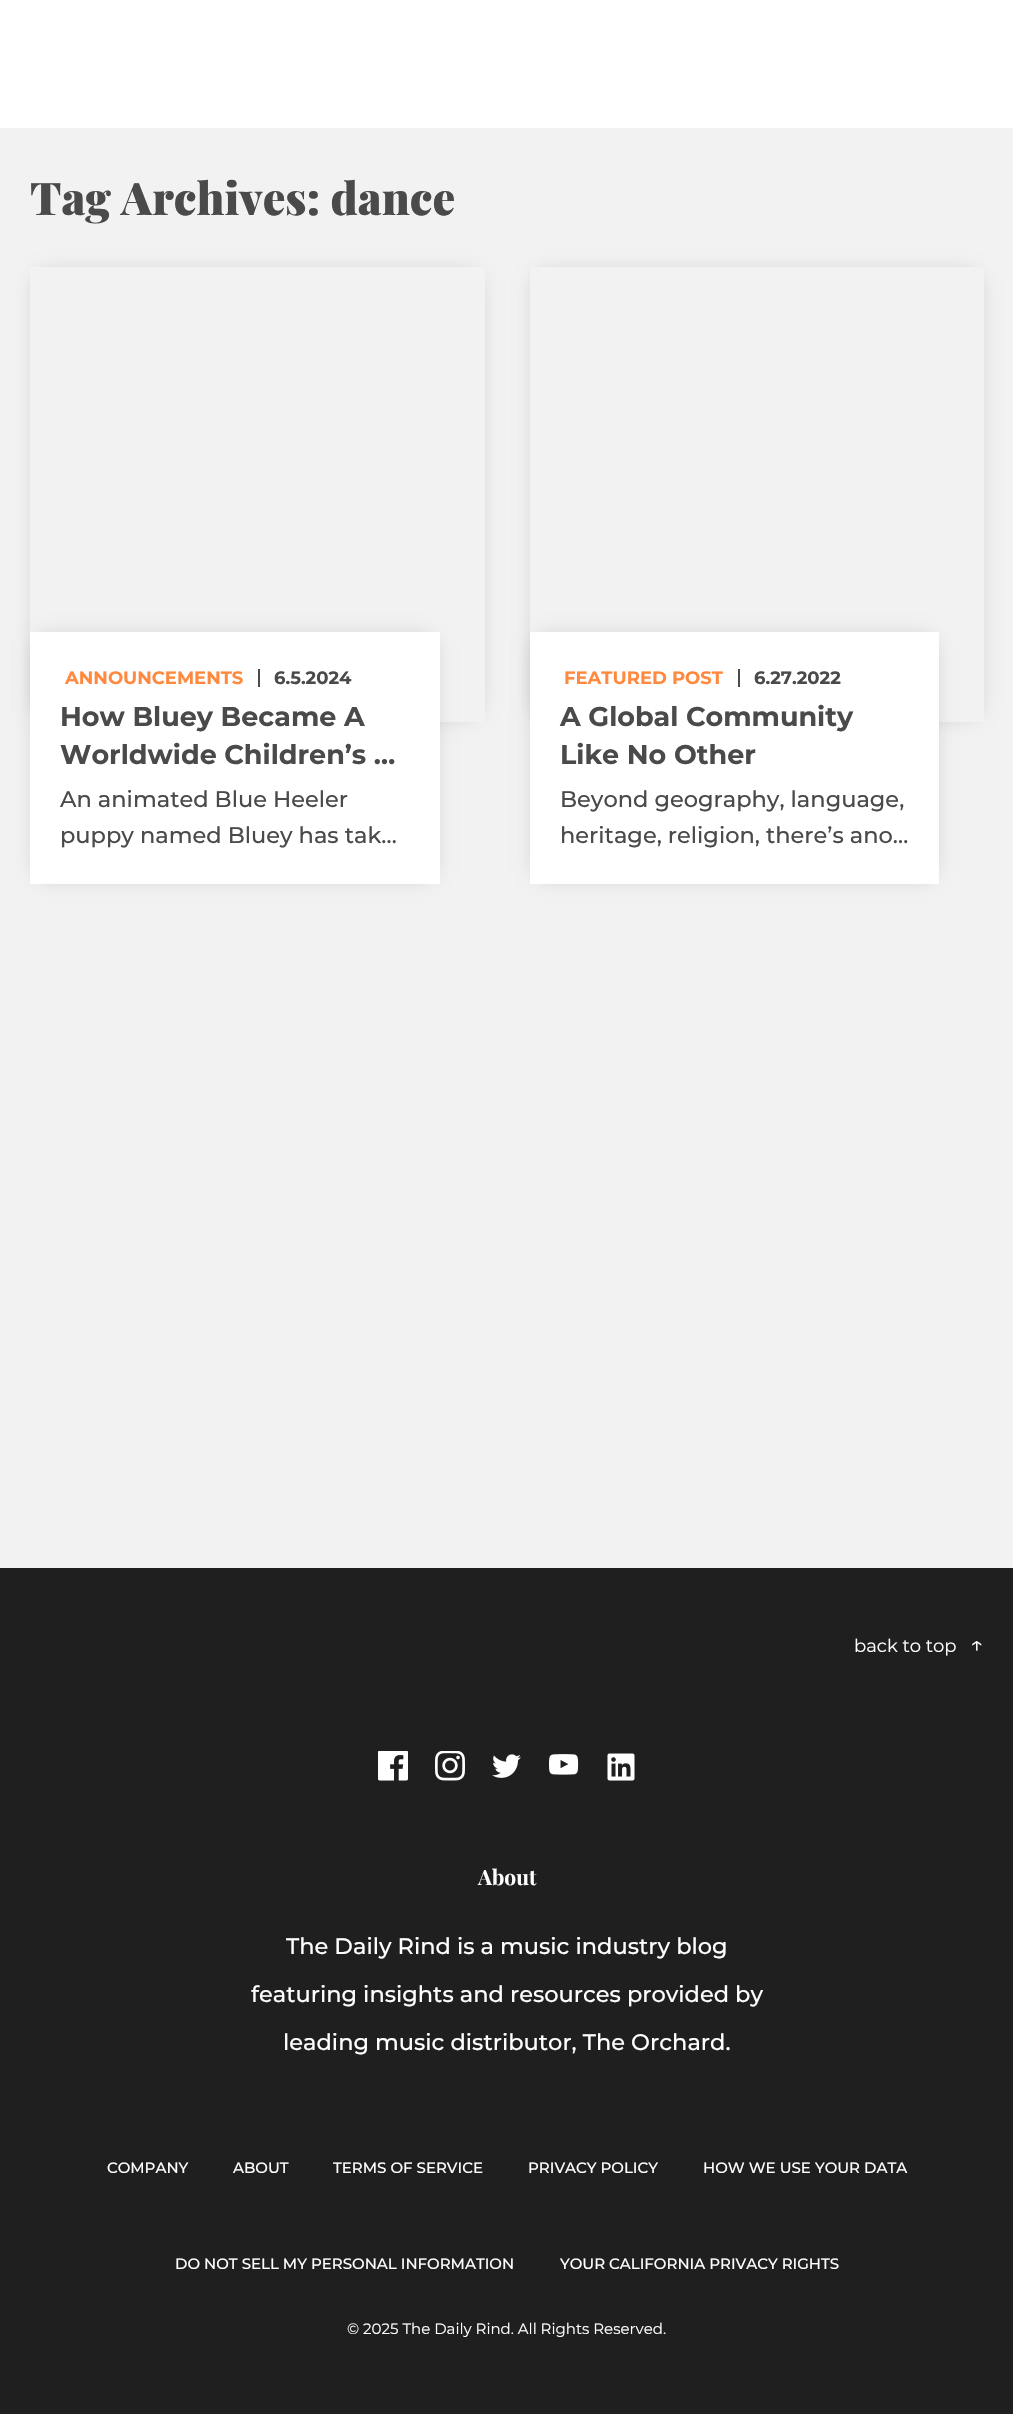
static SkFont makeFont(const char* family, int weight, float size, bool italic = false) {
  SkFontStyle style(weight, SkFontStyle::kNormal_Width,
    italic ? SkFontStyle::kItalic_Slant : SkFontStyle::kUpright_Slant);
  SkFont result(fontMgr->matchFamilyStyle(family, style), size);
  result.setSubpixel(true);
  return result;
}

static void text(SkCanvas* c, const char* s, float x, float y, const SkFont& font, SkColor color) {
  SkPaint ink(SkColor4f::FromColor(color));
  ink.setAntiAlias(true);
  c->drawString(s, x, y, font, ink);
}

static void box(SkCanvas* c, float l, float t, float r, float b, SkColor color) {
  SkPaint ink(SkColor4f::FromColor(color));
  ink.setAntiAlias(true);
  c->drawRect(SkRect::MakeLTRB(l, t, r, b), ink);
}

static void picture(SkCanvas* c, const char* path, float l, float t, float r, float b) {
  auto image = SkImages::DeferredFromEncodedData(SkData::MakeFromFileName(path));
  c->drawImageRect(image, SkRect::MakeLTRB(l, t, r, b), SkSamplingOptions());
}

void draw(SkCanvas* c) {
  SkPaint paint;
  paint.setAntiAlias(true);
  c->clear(0xfff2f2f2);
  box(c, 0, 0, 1013, 128, 0xffffffff);
  SkFont face1 = makeFont("Playfair Display", 900, 45);
  text(c, "Tag Archives: dance", 30, 215, face1, 0xff4a4a4a);
  c->save();
  c->clipPath(SkPathBuilder(SkPathFillType::kEvenOdd).moveTo(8, 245).lineTo(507, 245).lineTo(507, 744).lineTo(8, 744).close().moveTo(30, 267).lineTo(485, 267).lineTo(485, 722).lineTo(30, 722).close().detach(), true);
  paint.setColor(0x52000000);
  paint.setMaskFilter(SkMaskFilter::MakeBlur(kNormal_SkBlurStyle, 10.5f));
  c->drawRect(SkRect::MakeLTRB(41, 278, 474, 711), paint);
  paint.setMaskFilter(nullptr);
  c->restore();
  paint.setMaskFilter(SkMaskFilter::MakeBlur(kNormal_SkBlurStyle, 10.5f));
  c->drawRect(SkRect::MakeLTRB(41, 642, 429, 873), paint);
  paint.setMaskFilter(nullptr);
  box(c, 30, 632, 440, 884, 0xffffffff);
  box(c, 258, 669, 260, 687, 0xff4a4a4a);
  SkFont face2 = makeFont("Montserrat", 700, 18);
  text(c, "ANNOUNCEMENTS", 65, 684, face2, 0xffff893e);
  text(c, "6.5.2024", 274, 684, face2, 0xff4a4a4a);
  SkFont face3 = makeFont("Montserrat", 700, 27);
  text(c, "How Bluey Became A", 60, 726, face3, 0xff4a4a4a);
  text(c, "Worldwide Children’s …", 60, 764, face3, 0xff4a4a4a);
  SkFont face4 = makeFont("Montserrat", 500, 22.5f);
  text(c, "An animated Blue Heeler", 60, 807, face4, 0xff4a4a4a);
  text(c, "puppy named Bluey has tak…", 60, 843, face4, 0xff4a4a4a);
  c->save();
  c->clipPath(SkPathBuilder(SkPathFillType::kEvenOdd).moveTo(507, 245).lineTo(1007, 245).lineTo(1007, 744).lineTo(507, 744).close().moveTo(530, 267).lineTo(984, 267).lineTo(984, 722).lineTo(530, 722).close().detach(), true);
  paint.setMaskFilter(SkMaskFilter::MakeBlur(kNormal_SkBlurStyle, 10.5f));
  c->drawRect(SkRect::MakeLTRB(540, 278, 974, 711), paint);
  paint.setMaskFilter(nullptr);
  c->restore();
  paint.setMaskFilter(SkMaskFilter::MakeBlur(kNormal_SkBlurStyle, 10.5f));
  c->drawRect(SkRect::MakeLTRB(540, 642, 929, 873), paint);
  paint.setMaskFilter(nullptr);
  box(c, 530, 632, 939, 884, 0xffffffff);
  box(c, 738, 669, 740, 687, 0xff4a4a4a);
  text(c, "FEATURED POST", 564, 684, face2, 0xffff893e);
  text(c, "6.27.2022", 754, 684, face2, 0xff4a4a4a);
  text(c, "A Global Community", 560, 726, face3, 0xff4a4a4a);
  text(c, "Like No Other", 560, 764, face3, 0xff4a4a4a);
  text(c, "Beyond geography, language,", 560, 807, face4, 0xff4a4a4a);
  text(c, "heritage, religion, there’s ano…", 560, 843, face4, 0xff4a4a4a);
  box(c, 0, 1568, 1013, 2414, 0xff1f1f1f);
  SkFont face5 = makeFont("Montserrat", 400, 18);
  text(c, "back to top", 854, 1652, face5, 0xffffffff);
  SkFont face6 = makeFont("Montserrat", 400, 22.5f);
  text(c, "↑", 970, 1652, face6, 0xffffffff);
  picture(c, "img_01.png", 378, 1751, 408, 1781);
  picture(c, "img_02.png", 435, 1751, 465, 1781);
  picture(c, "img_03.png", 492, 1754, 521, 1778);
  picture(c, "img_04.png", 549, 1754, 579, 1775);
  picture(c, "img_05.png", 607, 1753, 635, 1781);
  SkFont face7 = makeFont("Playfair Display", 700, 21);
  text(c, "About", 478, 1885, face7, 0xffffffff);
  text(c, "The Daily Rind is a music industry blog", 286, 1954, face4, 0xffffffff);
  text(c, "featuring insights and resources provided by", 251, 2002, face4, 0xffffffff);
  text(c, "leading music distributor, The Orchard.", 283, 2050, face4, 0xffffffff);
  SkFont face8 = makeFont("Montserrat", 500, 15);
  text(c, "COMPANY", 107, 2173, face8, 0xffffffff);
  text(c, "ABOUT", 233, 2173, face8, 0xffffffff);
  text(c, "TERMS OF SERVICE", 333, 2173, face8, 0xffffffff);
  text(c, "PRIVACY POLICY", 528, 2173, face8, 0xffffffff);
  text(c, "HOW WE USE YOUR DATA", 703, 2173, face8, 0xffffffff);
  text(c, "DO NOT SELL MY PERSONAL INFORMATION", 175, 2269, face8, 0xffffffff);
  text(c, "YOUR CALIFORNIA PRIVACY RIGHTS", 560, 2269, face8, 0xffffffff);
  SkFont face9 = makeFont("Montserrat", 400, 15);
  text(c, "© 2025 The Daily Rind. All Rights Reserved.", 347, 2334, face9, 0xffffffff);
}
